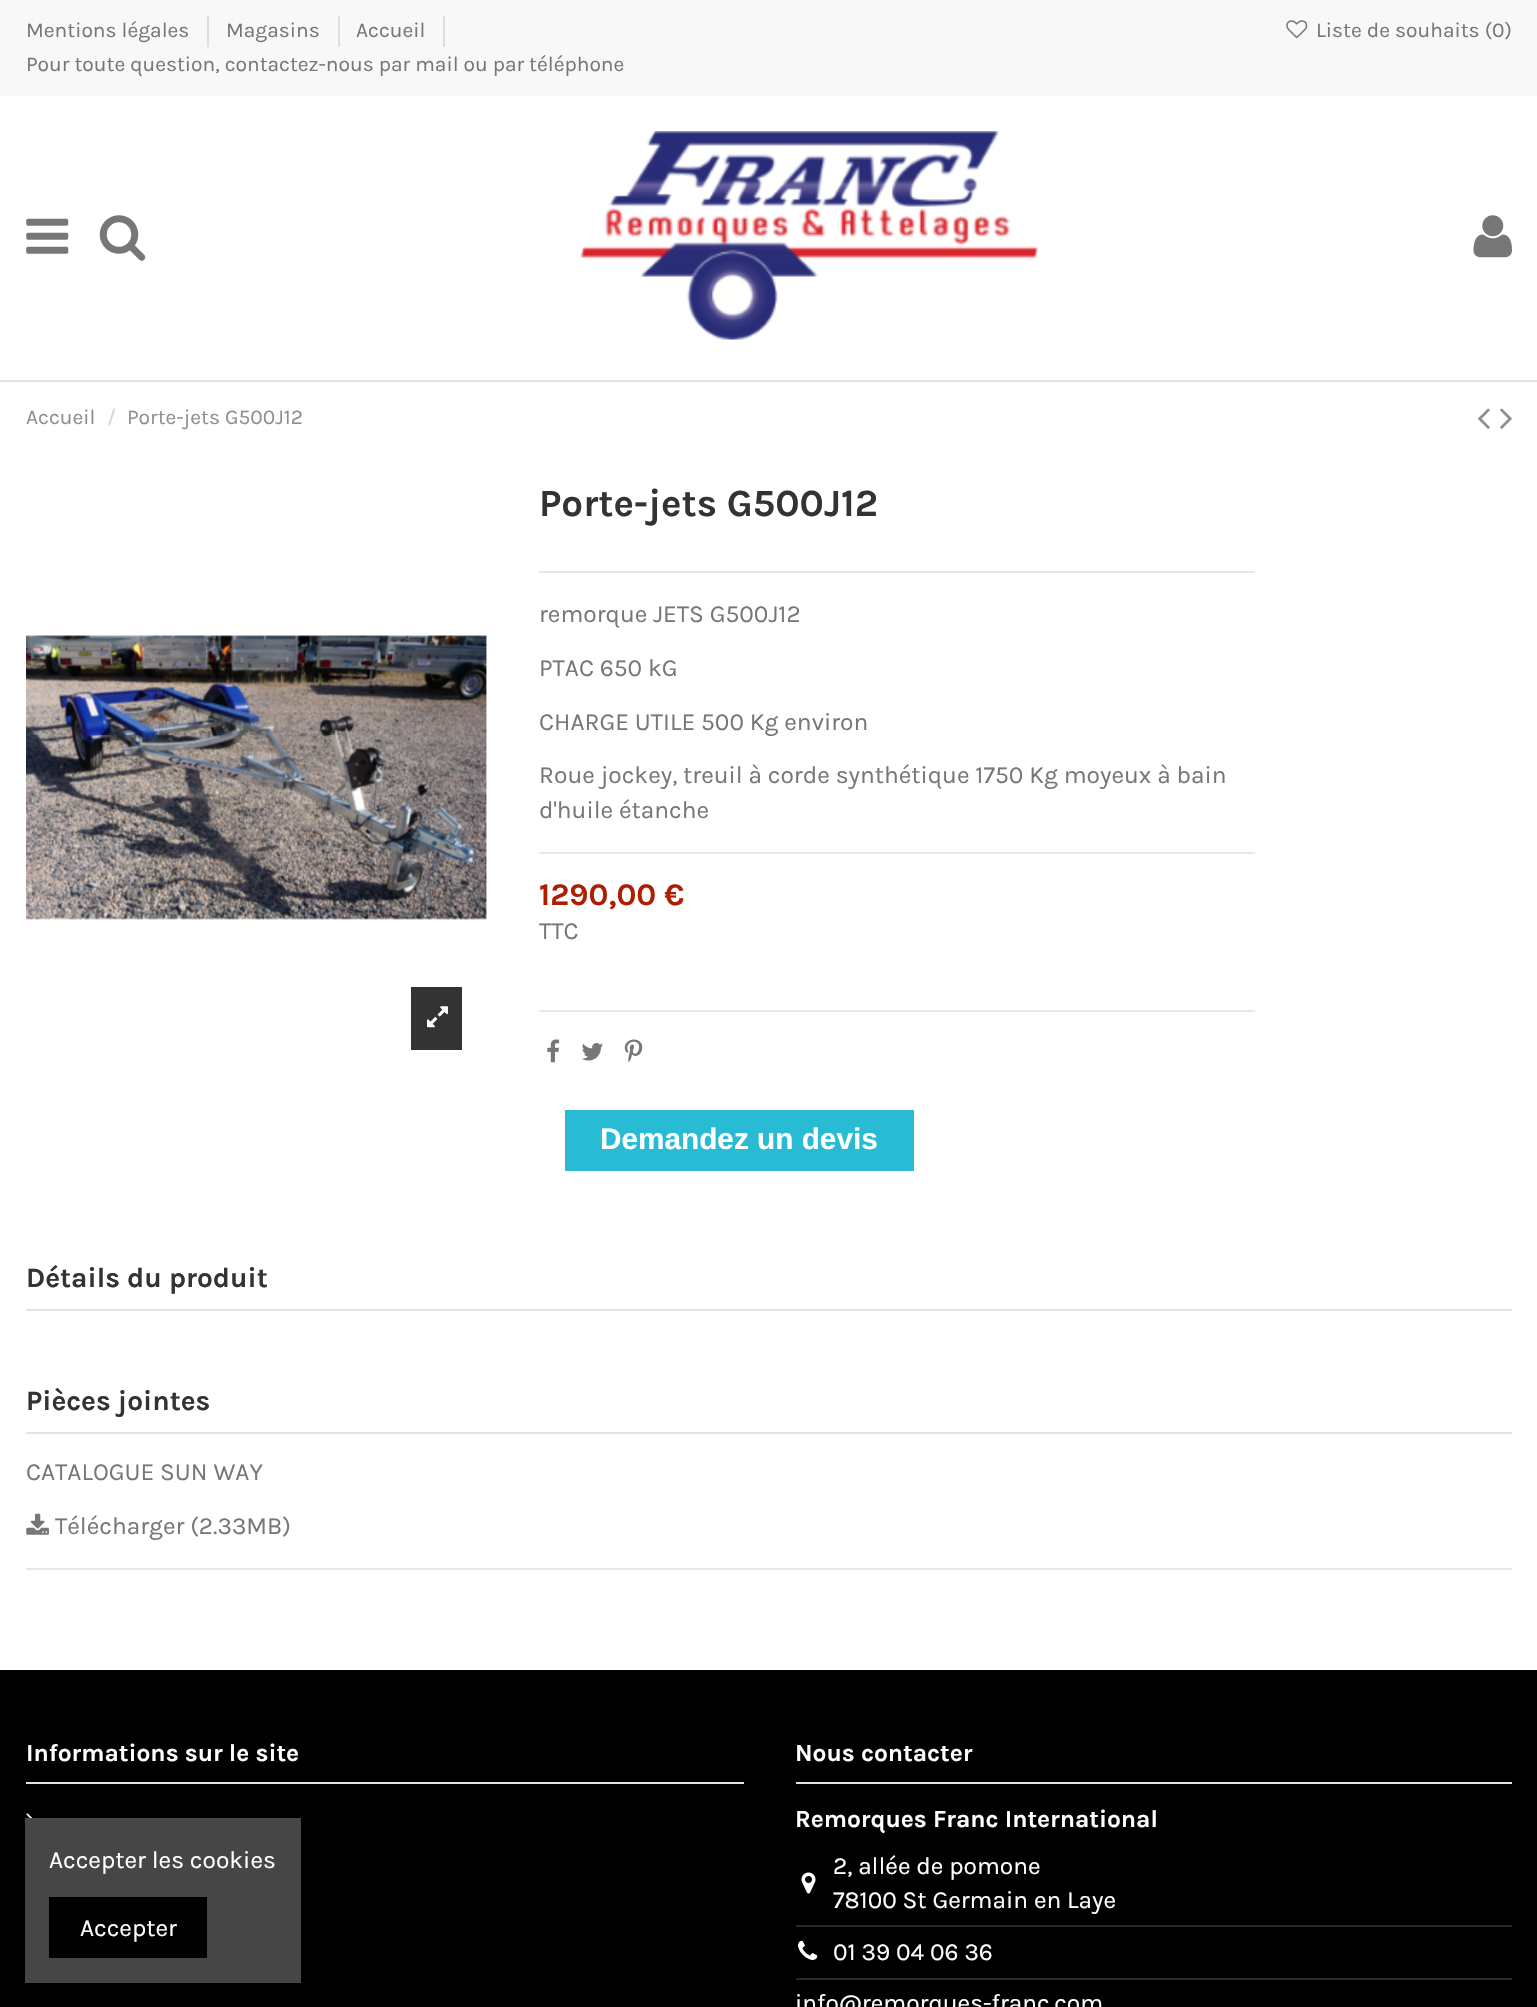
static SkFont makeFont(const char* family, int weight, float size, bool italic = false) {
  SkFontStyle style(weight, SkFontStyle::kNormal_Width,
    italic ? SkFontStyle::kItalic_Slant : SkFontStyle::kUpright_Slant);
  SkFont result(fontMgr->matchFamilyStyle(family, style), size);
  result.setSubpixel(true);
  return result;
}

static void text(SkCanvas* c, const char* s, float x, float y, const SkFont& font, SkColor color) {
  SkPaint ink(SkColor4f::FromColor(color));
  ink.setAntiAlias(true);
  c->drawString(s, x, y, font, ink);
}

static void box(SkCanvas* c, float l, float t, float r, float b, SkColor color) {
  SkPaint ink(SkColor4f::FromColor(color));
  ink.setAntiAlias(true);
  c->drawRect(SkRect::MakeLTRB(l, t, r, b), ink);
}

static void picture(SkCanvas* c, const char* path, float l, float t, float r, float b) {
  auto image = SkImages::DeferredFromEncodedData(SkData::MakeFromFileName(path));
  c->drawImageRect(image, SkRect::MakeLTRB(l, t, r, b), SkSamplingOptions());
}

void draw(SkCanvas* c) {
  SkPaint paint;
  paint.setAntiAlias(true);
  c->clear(0xffffffff);
  box(c, 0, 0, 1537, 96, 0xfff8f8f8);
  SkFont face1 = makeFont("Karla", 400, 21);
  text(c, "Mentions légales", 26, 37, face1, 0xff777777);
  box(c, 207, 16, 209, 47, 0xffdedede);
  text(c, "Magasins", 226, 37, face1, 0xff777777);
  box(c, 338, 16, 340, 47, 0xffdedede);
  text(c, "Accueil", 356, 37, face1, 0xff777777);
  box(c, 443, 16, 445, 47, 0xffdedede);
  text(c, "Pour toute question, contactez-nous par mail ou par téléphone", 26, 71, face1, 0xff777777);
  picture(c, "img_01.png", 1286, 20, 1308, 39);
  text(c, "Liste de souhaits (0)", 1316, 37, face1, 0xff777777);
  box(c, 0, 380, 1537, 382, 0xffe3e3e3);
  picture(c, "img_02.png", 26, 218, 69, 254);
  picture(c, "img_03.png", 99, 215, 146, 261);
  picture(c, "img_04.png", 581, 131, 1038, 340);
  picture(c, "img_05.png", 1473, 215, 1512, 258);
  text(c, "Accueil", 26, 424, face1, 0xff8f8f8f);
  text(c, "/", 107, 424, face1, 0xffd2d2d2);
  text(c, "Porte-jets G500J12", 127, 424, face1, 0xff8f8f8f);
  picture(c, "img_06.png", 1478, 408, 1490, 429);
  picture(c, "img_07.png", 1500, 408, 1512, 429);
  picture(c, "img_08.png", 26, 635, 487, 920);
  box(c, 411, 987, 462, 1050, 0xff333333);
  picture(c, "img_09.png", 427, 1006, 448, 1028);
  box(c, 539, 571, 1255, 573, 0xffe7e7e7);
  SkFont face2 = makeFont("Karla", 700, 38.5f);
  text(c, "Porte-jets G500J12", 539, 516, face2, 0xff333333);
  SkFont face3 = makeFont("Karla", 400, 24.5f);
  text(c, "remorque JETS G500J12", 539, 622, face3, 0xff777777);
  text(c, "PTAC 650 kG", 539, 676, face3, 0xff777777);
  text(c, "CHARGE UTILE 500 Kg environ", 539, 730, face3, 0xff777777);
  text(c, "Roue jockey, treuil à corde synthétique 1750 Kg moyeux à bain", 539, 783, face3, 0xff777777);
  text(c, "d'huile étanche", 539, 818, face3, 0xff777777);
  box(c, 539, 852, 1255, 854, 0xffe7e7e7);
  SkFont face4 = makeFont("Karla", 700, 31.5f);
  text(c, "1 290,00 €", 539, 905, face4, 0xffad1f00);
  text(c, "TTC", 539, 939, face3, 0xff777777);
  box(c, 539, 1010, 1255, 1012, 0xffe7e7e7);
  picture(c, "img_10.png", 547, 1039, 560, 1063);
  picture(c, "img_11.png", 581, 1043, 603, 1061);
  picture(c, "img_12.png", 624, 1039, 643, 1063);
  box(c, 565, 1110, 914, 1171, 0xff29bbd4);
  SkFont face5 = makeFont("Liberation Sans", 700, 29.75f);
  text(c, "Demandez un devis", 600, 1149, face5, 0xffffffff);
  box(c, 26, 1309, 1512, 1311, 0xffe3e3e3);
  SkFont face6 = makeFont("Karla", 700, 28);
  text(c, "Détails du produit", 26, 1287, face6, 0xff333333);
  box(c, 26, 1432, 1512, 1434, 0xffe3e3e3);
  text(c, "Pièces jointes", 26, 1410, face6, 0xff333333);
  text(c, "CATALOGUE SUN WAY", 26, 1480, face3, 0xff777777);
  picture(c, "img_13.png", 26, 1513, 49, 1535);
  text(c, "Télécharger (2.33MB)", 55, 1534, face3, 0xff777777);
  box(c, 26, 1568, 1512, 1570, 0xffe7e7e7);
  box(c, 0, 1670, 1537, 2007, 0xff000000);
  box(c, 26, 1782, 744, 1784, 0xffe3e3e3);
  SkFont face7 = makeFont("Karla", 700, 24.5f);
  text(c, "Informations sur le site", 26, 1761, face7, 0xffffffff);
  picture(c, "img_14.png", 26, 1813, 33, 1818);
  box(c, 796, 1782, 1512, 1784, 0xffe3e3e3);
  text(c, "Nous contacter", 795, 1761, face7, 0xffffffff);
  text(c, "Remorques Franc International", 795, 1827, face7, 0xffffffff);
  picture(c, "img_15.png", 801, 1872, 816, 1894);
  text(c, "2, allée de pomone", 833, 1874, face3, 0xffffffff);
  text(c, "78100 St Germain en Laye", 833, 1908, face3, 0xffffffff);
  box(c, 796, 1925, 1512, 1927, 0xff282828);
  picture(c, "img_16.png", 798, 1940, 818, 1960);
  text(c, "01 39 04 06 36", 833, 1960, face3, 0xffffffff);
  box(c, 796, 1978, 1512, 1980, 0xff282828);
  text(c, "info@remorques-franc.com", 795, 2011, face3, 0xffffffff);
  box(c, 25, 1818, 301, 1983, 0xff464646);
  text(c, "Accepter les cookies", 49, 1868, face3, 0xffffffff);
  box(c, 49, 1897, 207, 1958, 0xff000000);
  text(c, "Accepter", 80, 1936, face3, 0xffffffff);
}
